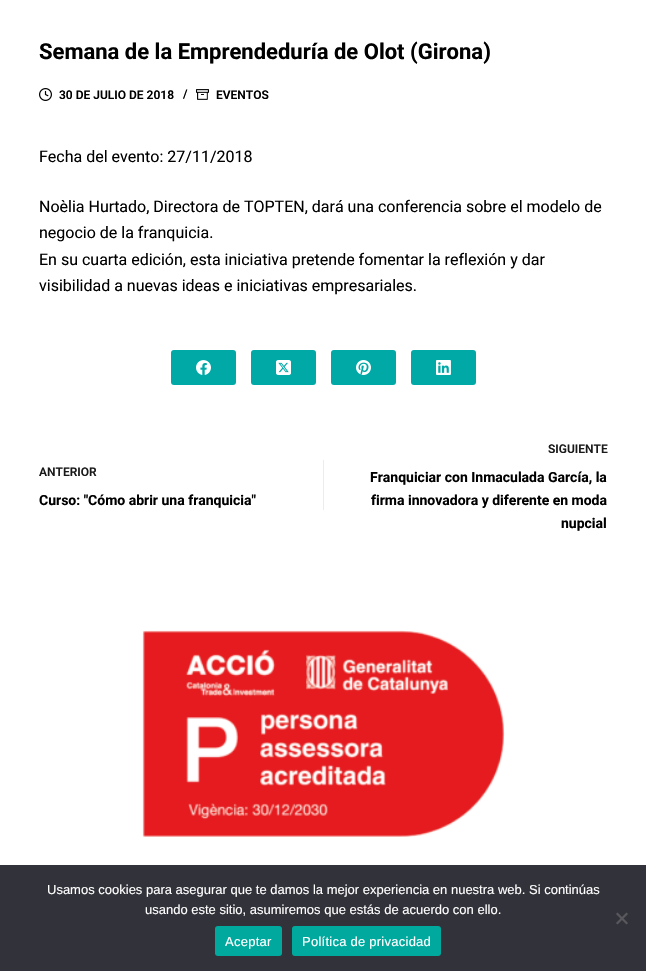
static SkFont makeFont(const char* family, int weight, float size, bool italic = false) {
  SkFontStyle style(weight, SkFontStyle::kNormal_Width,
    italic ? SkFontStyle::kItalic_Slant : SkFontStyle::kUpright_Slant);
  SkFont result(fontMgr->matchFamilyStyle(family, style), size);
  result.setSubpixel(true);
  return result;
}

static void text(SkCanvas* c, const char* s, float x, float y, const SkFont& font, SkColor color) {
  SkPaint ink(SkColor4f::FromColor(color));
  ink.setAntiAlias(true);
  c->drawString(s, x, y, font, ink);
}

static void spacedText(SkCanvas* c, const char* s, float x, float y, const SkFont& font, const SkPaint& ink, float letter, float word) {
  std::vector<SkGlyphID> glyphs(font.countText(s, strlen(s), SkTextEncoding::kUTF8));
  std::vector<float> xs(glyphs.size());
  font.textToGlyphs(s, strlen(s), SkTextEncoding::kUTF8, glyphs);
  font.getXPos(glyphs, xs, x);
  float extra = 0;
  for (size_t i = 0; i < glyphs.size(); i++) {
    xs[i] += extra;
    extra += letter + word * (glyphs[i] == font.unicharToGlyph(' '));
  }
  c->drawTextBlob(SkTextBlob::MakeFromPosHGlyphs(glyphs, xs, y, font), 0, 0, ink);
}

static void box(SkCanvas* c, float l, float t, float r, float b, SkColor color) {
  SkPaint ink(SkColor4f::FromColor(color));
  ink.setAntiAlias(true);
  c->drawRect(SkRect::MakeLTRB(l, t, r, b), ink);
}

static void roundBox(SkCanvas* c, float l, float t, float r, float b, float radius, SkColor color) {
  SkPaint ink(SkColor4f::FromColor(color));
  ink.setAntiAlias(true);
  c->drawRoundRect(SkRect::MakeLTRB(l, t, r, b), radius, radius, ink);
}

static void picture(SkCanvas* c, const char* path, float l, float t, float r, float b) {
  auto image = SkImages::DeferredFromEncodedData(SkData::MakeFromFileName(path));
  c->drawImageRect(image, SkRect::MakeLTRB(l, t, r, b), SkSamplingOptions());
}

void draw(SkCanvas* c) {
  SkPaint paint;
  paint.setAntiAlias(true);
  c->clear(0xffffffff);
  SkFont face1 = makeFont("Roboto", 700, 22);
  text(c, "Semana de la Emprendeduría de Olot (Girona)", 39, 59, face1, 0xff000000);
  picture(c, "img_01.png", 39, 88, 52, 101);
  SkFont face2 = makeFont("Roboto", 600, 12);
  text(c, "30 DE JULIO DE 2018", 59, 99, face2, 0xff000000);
  text(c, "/", 183, 98, face2, 0xff000000);
  picture(c, "img_02.png", 196, 89, 209, 100);
  text(c, "EVENTOS", 216, 99, face2, 0xff000000);
  SkFont face3 = makeFont("Roboto", 400, 16);
  text(c, "Fecha del evento: 27/11/2018", 39, 162, face3, 0xff000000);
  text(c, "Noèlia Hurtado, Directora de TOPTEN, dará una conferencia sobre el modelo de", 39, 212, face3, 0xff000000);
  text(c, "negocio de la franquicia.", 39, 238, face3, 0xff000000);
  text(c, "En su cuarta edición, esta iniciativa pretende fomentar la reflexión y dar", 39, 265, face3, 0xff000000);
  text(c, "visibilidad a nuevas ideas e iniciativas empresariales.", 39, 291, face3, 0xff000000);
  roundBox(c, 171, 350, 236, 385, 3, 0xff00a8a6);
  picture(c, "img_03.png", 196, 360, 211, 375);
  roundBox(c, 251, 350, 316, 385, 3, 0xff00a8a6);
  picture(c, "img_04.png", 276, 360, 291, 375);
  roundBox(c, 331, 350, 396, 385, 3, 0xff00a8a6);
  picture(c, "img_05.png", 356, 360, 371, 375);
  roundBox(c, 411, 350, 476, 385, 3, 0xff00a8a6);
  picture(c, "img_06.png", 436, 360, 451, 375);
  text(c, "ANTERIOR", 39, 476, face2, 0xff1a1a1a);
  SkFont face4 = makeFont("Roboto", 700, 14);
  text(c, "Curso: \"Cómo abrir una franquicia\"", 39, 505, face4, 0xff000000);
  box(c, 323, 460, 324, 510, 0xffececec);
  text(c, "SIGUIENTE", 548, 453, face2, 0xff1a1a1a);
  text(c, "Franquiciar con Inmaculada García, la", 370, 482, face4, 0xff000000);
  text(c, "firma innovadora y diferente en moda", 371, 505, face4, 0xff000000);
  text(c, "nupcial", 561, 528, face4, 0xff000000);
  picture(c, "img_07.png", 142, 630, 505, 837);
  box(c, 0, 865, 646, 971, 0xff32323a);
  SkFont face5 = makeFont("Liberation Sans", 400, 13);
  text(c, "Usamos cookies para asegurar que te damos la mejor experiencia en nuestra web. Si continúas", 47, 894, face5, 0xffffffff);
  text(c, "usando este sitio, asumiremos que estás de acuerdo con ello.", 145, 914, face5, 0xffffffff);
  paint.setColor(0xff59595d);
  c->drawPath(SkPathBuilder().moveTo(626.5f, 912.5f).lineTo(628, 914).lineTo(617.5f, 924.5f).lineTo(616, 923).close().detach(), paint);
  c->drawPath(SkPathBuilder().moveTo(616, 914).lineTo(617.5f, 912.5f).lineTo(628, 923).lineTo(626.5f, 924.5f).close().detach(), paint);
  roundBox(c, 215, 926, 282, 956, 3, 0xff00a99d);
  paint.setColor(0xffffffff);
  spacedText(c, "Aceptar", 225, 946, face5, paint, 0.25f, 0);
  roundBox(c, 292, 926, 441, 956, 3, 0xff00a99d);
  spacedText(c, "Política de privacidad", 302, 946, face5, paint, 0.25f, 0);
}
